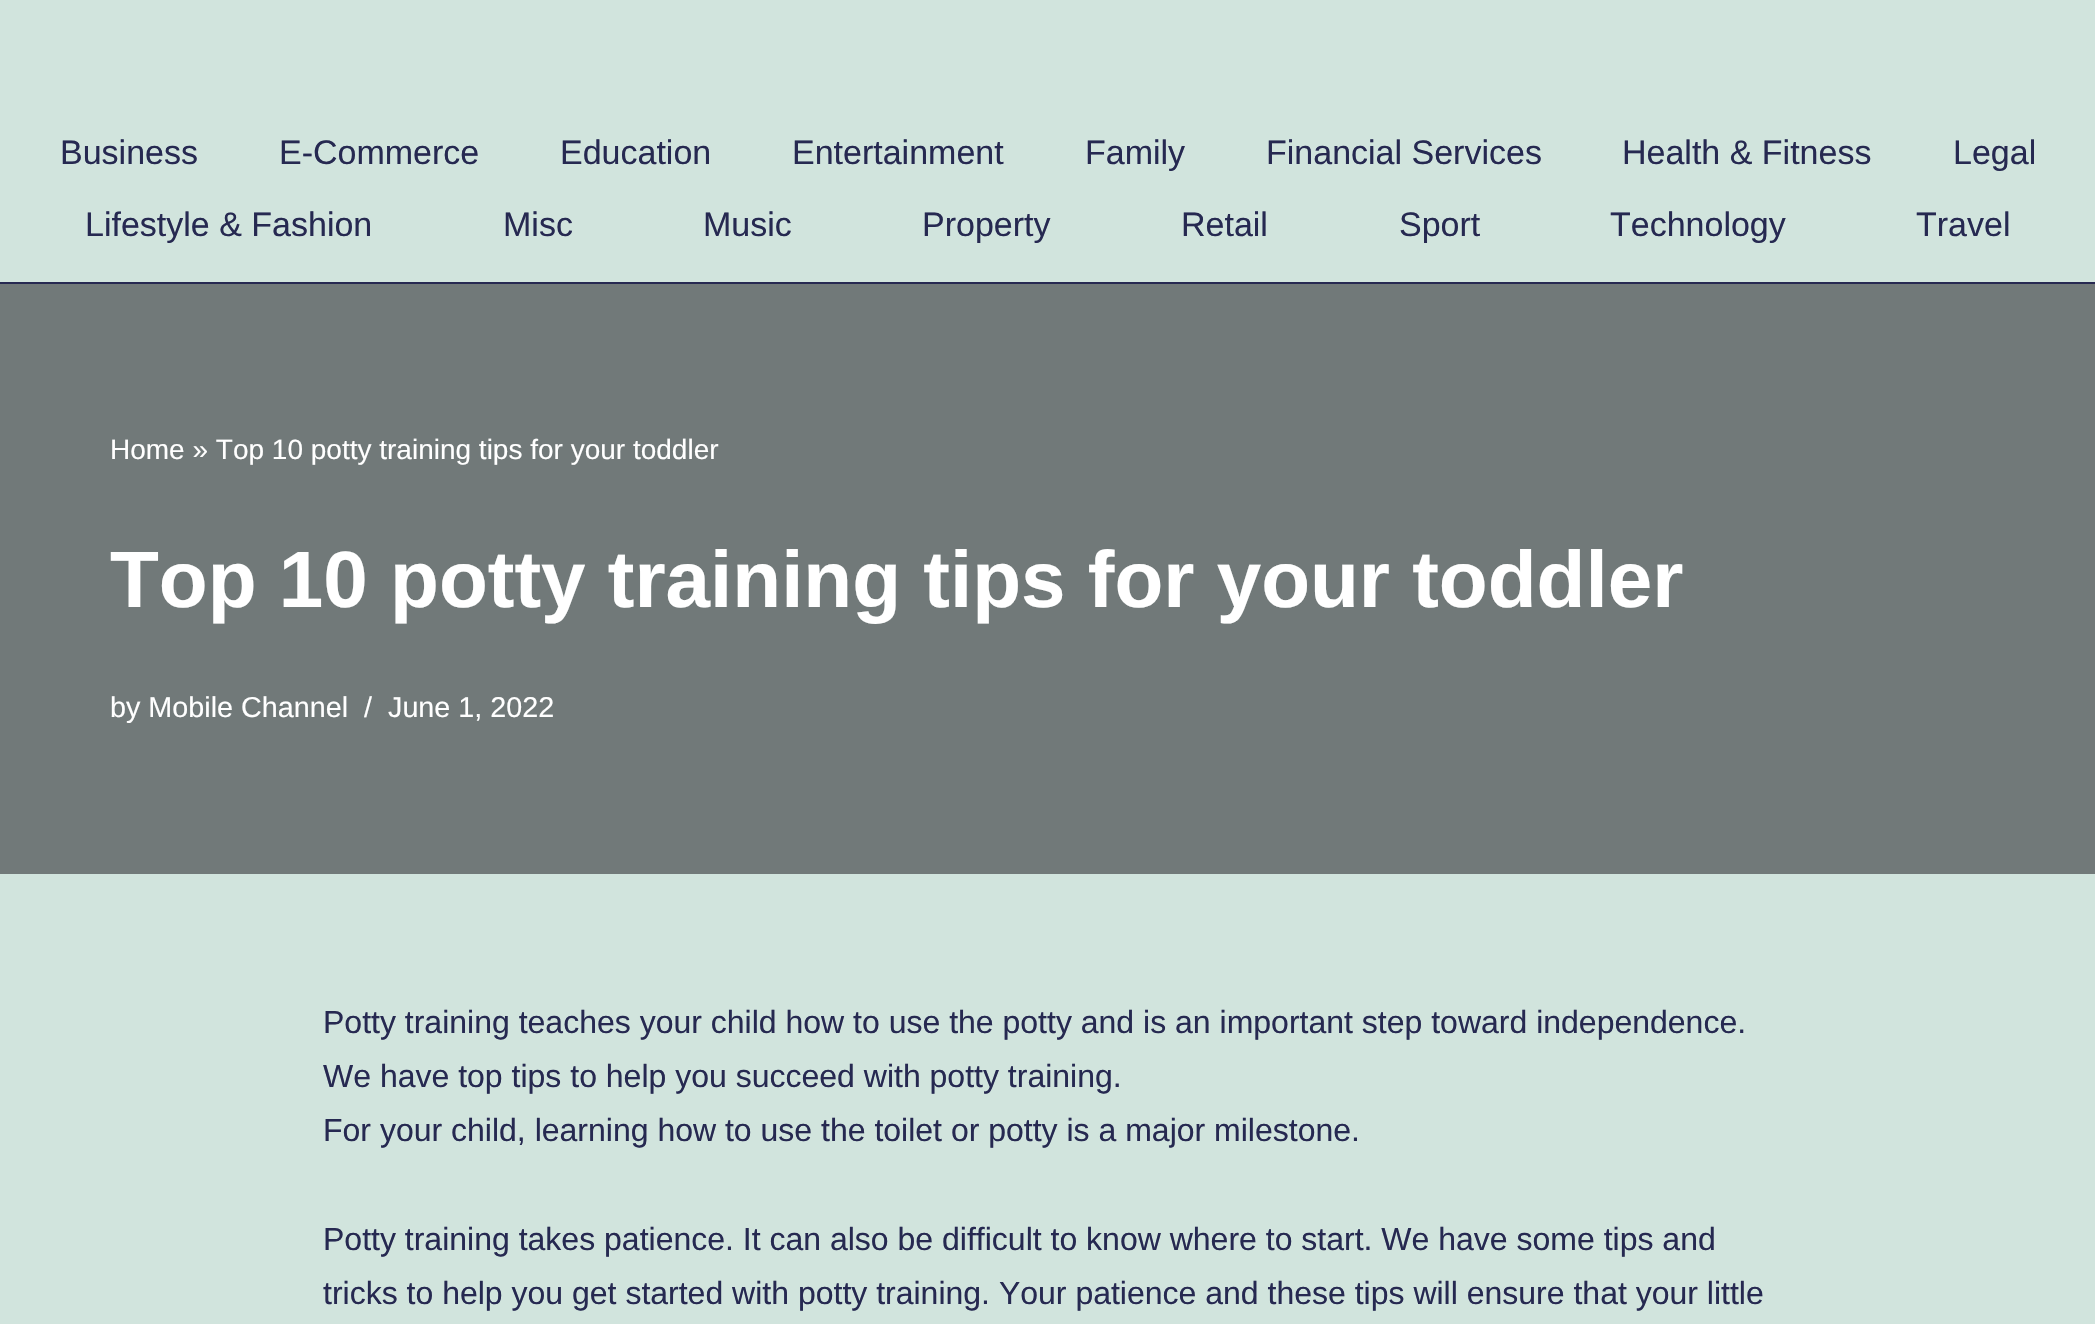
static SkFont makeFont(const char* family, int weight, float size, bool italic = false) {
  SkFontStyle style(weight, SkFontStyle::kNormal_Width,
    italic ? SkFontStyle::kItalic_Slant : SkFontStyle::kUpright_Slant);
  SkFont result(fontMgr->matchFamilyStyle(family, style), size);
  result.setSubpixel(true);
  return result;
}

static void text(SkCanvas* c, const char* s, float x, float y, const SkFont& font, SkColor color) {
  SkPaint ink(SkColor4f::FromColor(color));
  ink.setAntiAlias(true);
  c->drawString(s, x, y, font, ink);
}

static void box(SkCanvas* c, float l, float t, float r, float b, SkColor color) {
  SkPaint ink(SkColor4f::FromColor(color));
  ink.setAntiAlias(true);
  c->drawRect(SkRect::MakeLTRB(l, t, r, b), ink);
}

void draw(SkCanvas* c) {
  SkPaint paint;
  paint.setAntiAlias(true);
  c->clear(0xffd1e4dd);
  box(c, 0, 282, 2095, 284, 0xff262951);
  SkFont face1 = makeFont("Liberation Sans", 400, 34);
  text(c, "Business", 60, 164, face1, 0xff262951);
  text(c, "E-Commerce", 279, 164, face1, 0xff262951);
  text(c, "Education", 560, 164, face1, 0xff262951);
  text(c, "Entertainment", 792, 164, face1, 0xff262951);
  text(c, "Family", 1085, 164, face1, 0xff262951);
  text(c, "Financial Services", 1266, 164, face1, 0xff262951);
  text(c, "Health & Fitness", 1622, 164, face1, 0xff262951);
  text(c, "Legal", 1953, 164, face1, 0xff262951);
  text(c, "Lifestyle & Fashion", 85, 236, face1, 0xff262951);
  text(c, "Misc", 503, 236, face1, 0xff262951);
  text(c, "Music", 703, 236, face1, 0xff262951);
  text(c, "Property", 922, 236, face1, 0xff262951);
  text(c, "Retail", 1181, 236, face1, 0xff262951);
  text(c, "Sport", 1399, 236, face1, 0xff262951);
  text(c, "Technology", 1610, 236, face1, 0xff262951);
  text(c, "Travel", 1916, 236, face1, 0xff262951);
  box(c, 0, 284, 2095, 874, 0xff717979);
  SkFont face2 = makeFont("Liberation Sans", 400, 28);
  text(c, "Home » Top 10 potty training tips for your toddler", 110, 459, face2, 0xffffffff);
  SkFont face3 = makeFont("Liberation Sans", 700, 80);
  text(c, "Top 10 potty training tips for your toddler", 110, 607, face3, 0xffffffff);
  SkFont face4 = makeFont("Liberation Sans", 400, 28.75f);
  text(c, "by Mobile Channel", 110, 717, face4, 0xffffffff);
  text(c, "/", 364, 717, face4, 0xffffffff);
  text(c, "June 1, 2022", 388, 717, face4, 0xffffffff);
  SkFont face5 = makeFont("Liberation Sans", 400, 32);
  text(c, "Potty training teaches your child how to use the potty and is an important step toward independence.", 323, 1033, face5, 0xff262951);
  text(c, "We have top tips to help you succeed with potty training.", 323, 1087, face5, 0xff262951);
  text(c, "For your child, learning how to use the toilet or potty is a major milestone.", 323, 1141, face5, 0xff262951);
  text(c, "Potty training takes patience. It can also be difficult to know where to start. We have some tips and", 323, 1250, face5, 0xff262951);
  text(c, "tricks to help you get started with potty training. Your patience and these tips will ensure that your little", 323, 1304, face5, 0xff262951);
}
